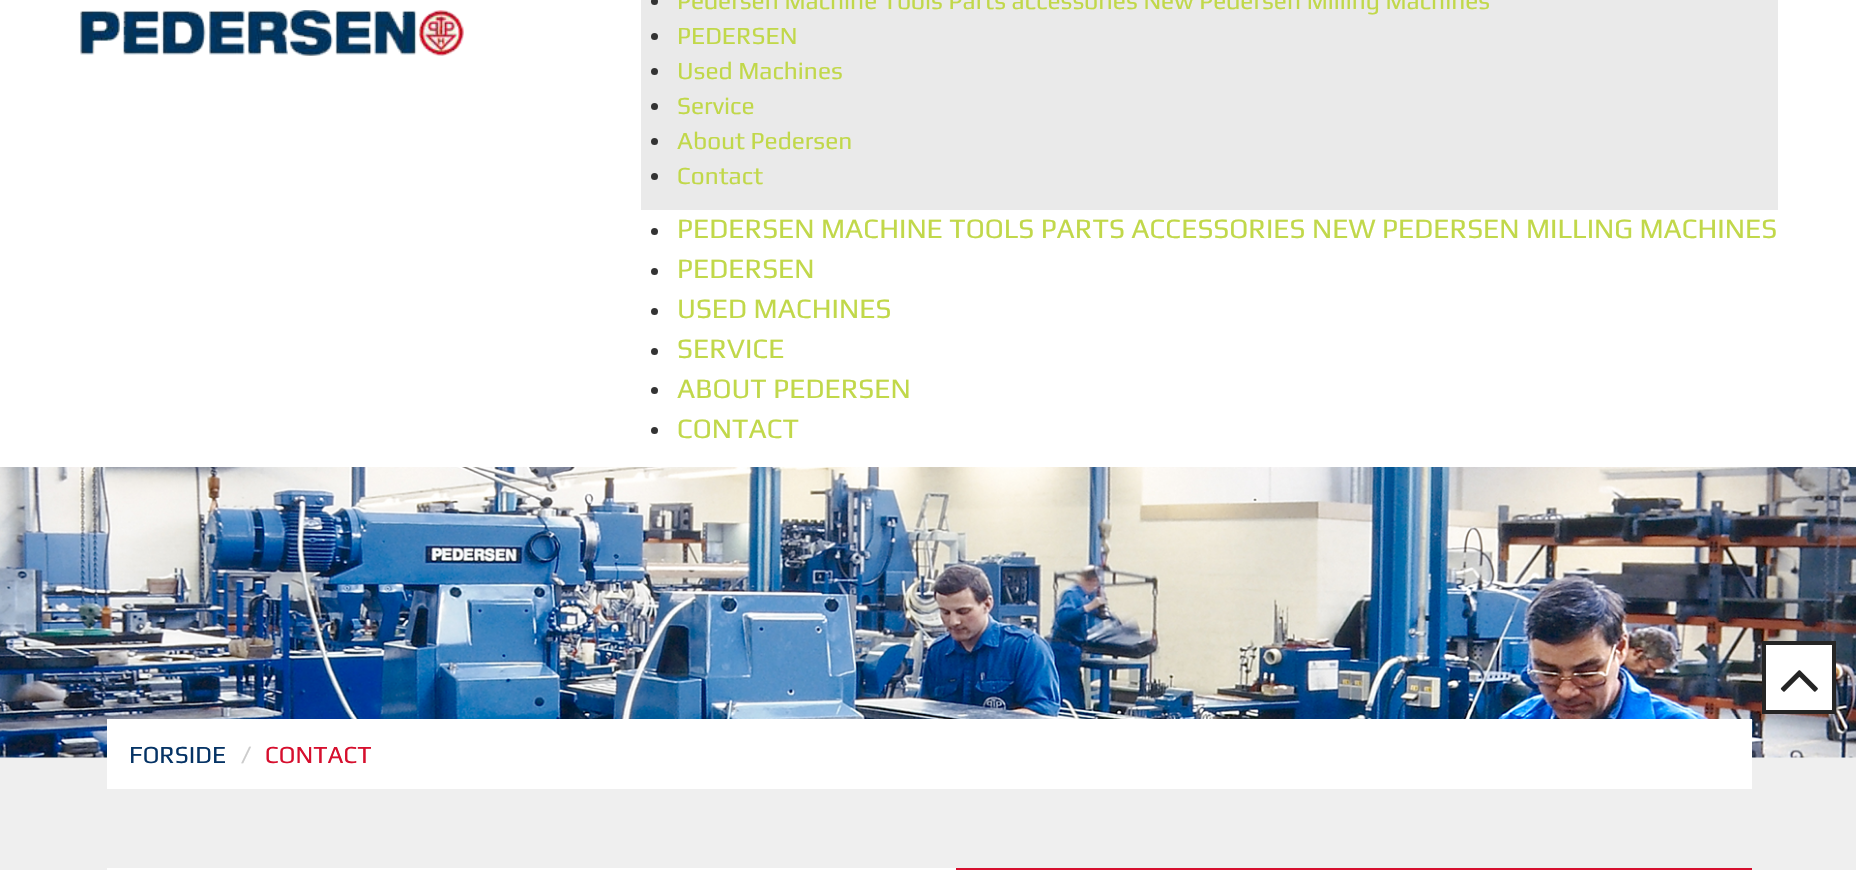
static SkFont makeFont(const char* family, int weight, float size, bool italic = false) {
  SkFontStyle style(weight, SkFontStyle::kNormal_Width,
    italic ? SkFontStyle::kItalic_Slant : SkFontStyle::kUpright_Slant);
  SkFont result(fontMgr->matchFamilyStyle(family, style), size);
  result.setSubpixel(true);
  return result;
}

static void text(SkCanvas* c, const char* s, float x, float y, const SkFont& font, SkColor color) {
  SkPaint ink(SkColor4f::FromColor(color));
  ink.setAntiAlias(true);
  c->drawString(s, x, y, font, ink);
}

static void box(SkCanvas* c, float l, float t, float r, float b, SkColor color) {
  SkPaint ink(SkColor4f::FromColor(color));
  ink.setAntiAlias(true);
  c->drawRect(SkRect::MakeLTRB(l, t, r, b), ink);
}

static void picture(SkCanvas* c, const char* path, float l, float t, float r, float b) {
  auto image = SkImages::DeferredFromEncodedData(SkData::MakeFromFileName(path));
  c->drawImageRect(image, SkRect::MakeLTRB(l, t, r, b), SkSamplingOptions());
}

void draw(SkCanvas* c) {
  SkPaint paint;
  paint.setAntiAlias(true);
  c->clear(0xffefefef);
  box(c, 0, 0, 1856, 467, 0xffffffff);
  picture(c, "img_01.png", 80, 10, 464, 56);
  box(c, 641, 0, 1778, 210, 0xffeaeaea);
  paint.setColor(0xff333333);
  c->drawCircle(654.5f, 1.5f, 3.5f, paint);
  SkFont face1 = makeFont("Play", 400, 24.5f);
  text(c, "Pedersen Machine Tools Parts accessories New Pedersen Milling Machines", 677, 9, face1, 0xffc1d84a);
  c->drawCircle(654.5f, 36.5f, 3.5f, paint);
  text(c, "PEDERSEN", 677, 44, face1, 0xffc1d84a);
  c->drawCircle(654.5f, 71.5f, 3.5f, paint);
  text(c, "Used Machines", 677, 79, face1, 0xffc1d84a);
  c->drawCircle(654.5f, 106.5f, 3.5f, paint);
  text(c, "Service", 677, 114, face1, 0xffc1d84a);
  c->drawCircle(654.5f, 141.5f, 3.5f, paint);
  text(c, "About Pedersen", 677, 149, face1, 0xffc1d84a);
  c->drawCircle(654.5f, 176.5f, 3.5f, paint);
  text(c, "Contact", 677, 184, face1, 0xffc1d84a);
  c->drawCircle(654.5f, 231.5f, 3.5f, paint);
  SkFont face2 = makeFont("Play", 400, 28);
  text(c, "PEDERSEN MACHINE TOOLS PARTS ACCESSORIES NEW PEDERSEN MILLING MACHINES", 677, 238, face2, 0xffc1d84a);
  c->drawCircle(654.5f, 271.5f, 3.5f, paint);
  text(c, "PEDERSEN", 677, 278, face2, 0xffc1d84a);
  c->drawCircle(654.5f, 311.5f, 3.5f, paint);
  text(c, "USED MACHINES", 677, 318, face2, 0xffc1d84a);
  c->drawCircle(654.5f, 351.5f, 3.5f, paint);
  text(c, "SERVICE", 677, 358, face2, 0xffc1d84a);
  c->drawCircle(654.5f, 390.5f, 3.5f, paint);
  text(c, "ABOUT PEDERSEN", 677, 398, face2, 0xffc1d84a);
  c->drawCircle(654.5f, 430.5f, 3.5f, paint);
  text(c, "CONTACT", 677, 438, face2, 0xffc1d84a);
  picture(c, "img_02.png", 0, 467, 1856, 758);
  box(c, 107, 719, 1752, 789, 0xffffffff);
  text(c, "FORSIDE", 129, 763, face1, 0xff053365);
  text(c, "/", 241, 763, face1, 0xffcccccc);
  text(c, "CONTACT", 265, 763, face1, 0xffd60f2e);
  box(c, 107, 868, 956, 870, 0xffffffff);
  box(c, 956, 868, 1752, 870, 0xffd60f2e);
  paint.setColor(0xffffffff);
  c->drawRect(SkRect::MakeLTRB(1764, 643, 1834, 712), paint);
  paint.setStyle(SkPaint::kStroke_Style);
  paint.setStrokeWidth(4);
  paint.setColor(0xff252525);
  c->drawRect(SkRect::MakeLTRB(1764, 643, 1834, 712), paint);
  picture(c, "img_03.png", 1780, 670, 1818, 692);
}
